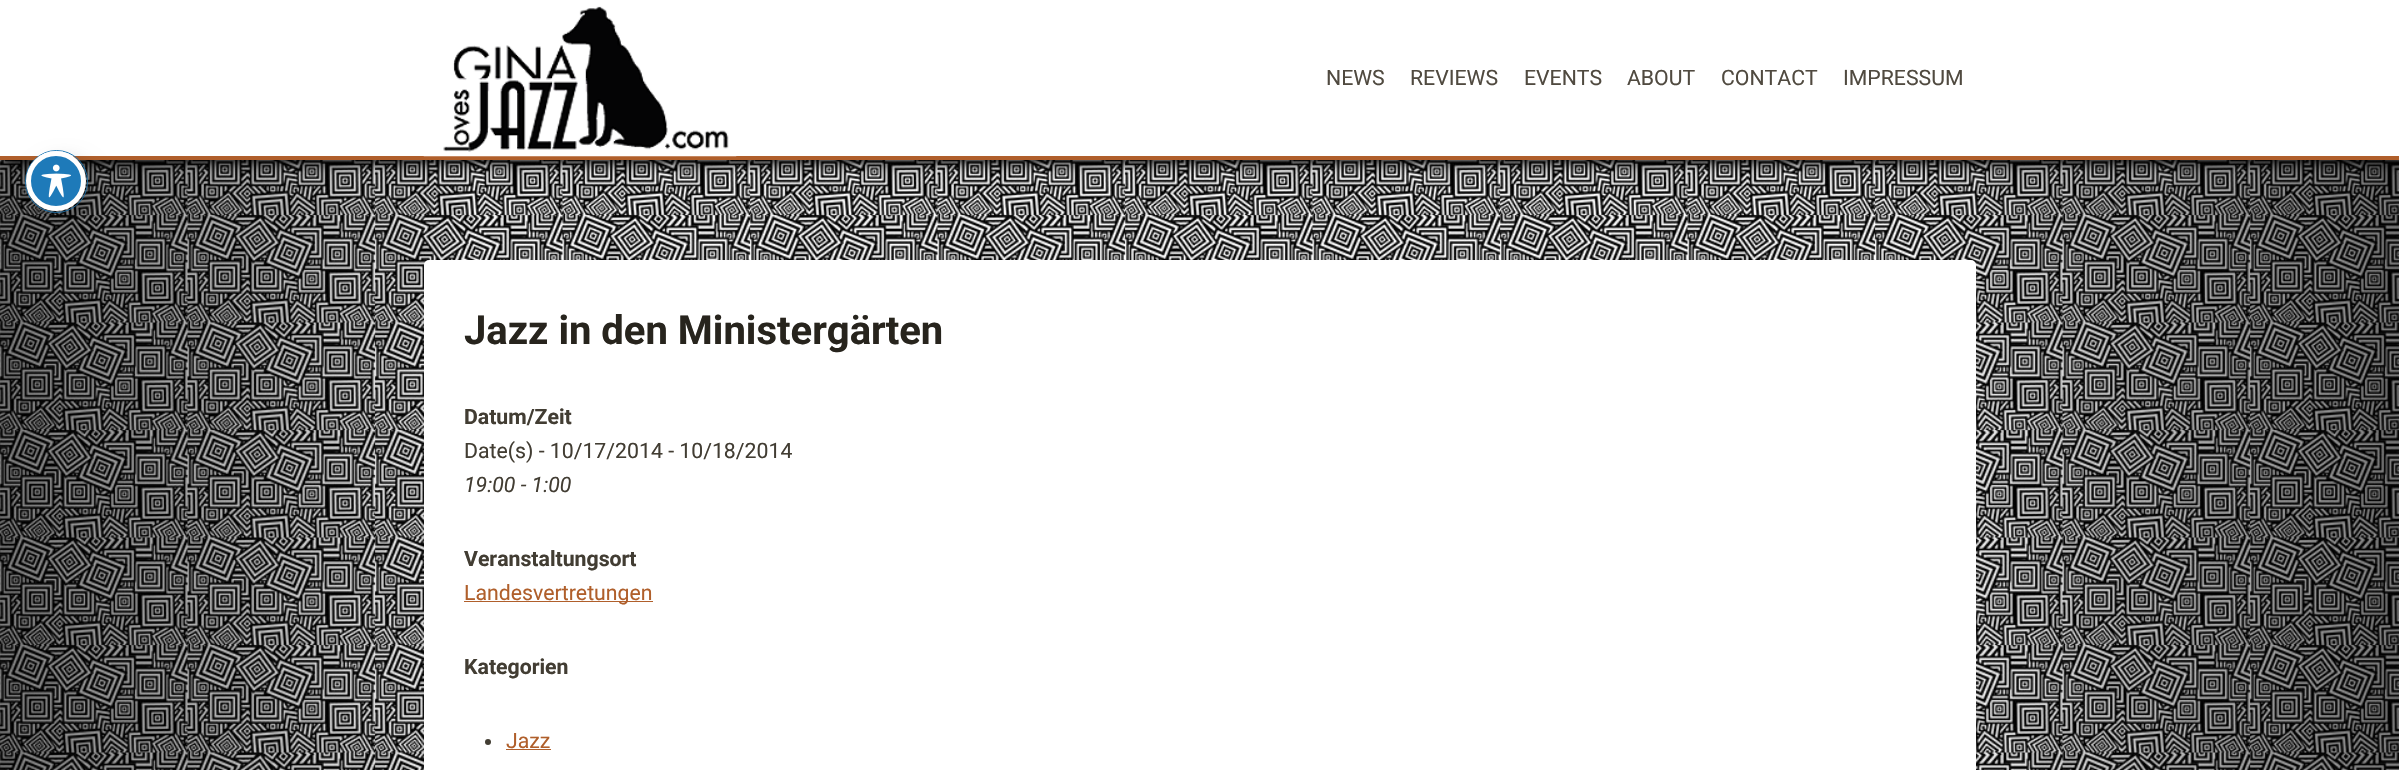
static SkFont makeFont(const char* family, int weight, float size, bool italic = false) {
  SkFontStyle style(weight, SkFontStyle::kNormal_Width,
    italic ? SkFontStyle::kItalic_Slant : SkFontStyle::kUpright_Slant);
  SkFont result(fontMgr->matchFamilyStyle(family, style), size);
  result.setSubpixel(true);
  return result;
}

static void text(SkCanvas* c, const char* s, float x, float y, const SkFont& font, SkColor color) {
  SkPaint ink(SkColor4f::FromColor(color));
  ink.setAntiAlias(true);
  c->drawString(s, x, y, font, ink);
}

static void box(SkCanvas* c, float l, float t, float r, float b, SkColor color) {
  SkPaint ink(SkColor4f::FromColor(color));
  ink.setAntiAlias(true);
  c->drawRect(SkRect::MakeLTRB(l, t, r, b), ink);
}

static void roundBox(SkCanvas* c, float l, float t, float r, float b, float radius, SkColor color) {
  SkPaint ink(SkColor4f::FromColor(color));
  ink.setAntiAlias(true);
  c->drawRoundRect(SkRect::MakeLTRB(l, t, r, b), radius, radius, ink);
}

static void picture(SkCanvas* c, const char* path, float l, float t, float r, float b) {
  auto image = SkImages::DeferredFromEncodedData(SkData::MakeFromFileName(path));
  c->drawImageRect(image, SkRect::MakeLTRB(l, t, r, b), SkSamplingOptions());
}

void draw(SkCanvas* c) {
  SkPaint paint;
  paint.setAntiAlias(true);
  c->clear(0xffffffff);
  picture(c, "img_01.png", 0, 160, 2399, 770);
  paint.setColor(0xff000000);
  paint.setMaskFilter(SkMaskFilter::MakeBlur(kNormal_SkBlurStyle, 6));
  c->drawRect(SkRect::MakeLTRB(6, 3, 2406, 163), paint);
  paint.setMaskFilter(nullptr);
  box(c, 0, 0, 2399, 156, 0xffffffff);
  box(c, 0, 156, 2399, 160, 0xffb05f2b);
  paint.setStyle(SkPaint::kStroke_Style);
  paint.setStrokeWidth(1);
  paint.setColor(0xff1e7ab9);
  c->drawCircle(56.5f, 181.5f, 31, paint);
  paint.setStyle(SkPaint::kFill_Style);
  paint.setColor(0x33000000);
  paint.setMaskFilter(SkMaskFilter::MakeBlur(kNormal_SkBlurStyle, 10));
  c->drawRoundRect(SkRect::MakeLTRB(34, 161, 94, 221), 30, 30, paint);
  paint.setMaskFilter(nullptr);
  paint.setColor(0xff1e7ab9);
  c->drawCircle(56, 181, 27.5f, paint);
  paint.setStyle(SkPaint::kStroke_Style);
  paint.setStrokeWidth(5);
  paint.setColor(0xffffffff);
  c->drawCircle(56, 181, 27.5f, paint);
  picture(c, "img_02.png", 41, 164, 71, 198);
  picture(c, "img_03.png", 423, 6, 737, 157);
  SkFont face1 = makeFont("Roboto", 400, 21.25f);
  text(c, "NEWS", 1326, 85, face1, 0xff504a40);
  text(c, "REVIEWS", 1410, 85, face1, 0xff504a40);
  text(c, "EVENTS", 1524, 85, face1, 0xff504a40);
  text(c, "ABOUT", 1627, 85, face1, 0xff504a40);
  text(c, "CONTACT", 1721, 85, face1, 0xff504a40);
  text(c, "IMPRESSUM", 1843, 85, face1, 0xff504a40);
  roundBox(c, 424, 260, 1976, 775, 5, 0xffffffff);
  SkFont face2 = makeFont("Roboto", 700, 40);
  text(c, "Jazz in den Ministergärten", 464, 344, face2, 0xff27241d);
  SkFont face3 = makeFont("Roboto", 700, 21.25f);
  text(c, "Datum/Zeit", 464, 424, face3, 0xff423d33);
  text(c, "Date(s) - 10/17/2014 - 10/18/2014", 464, 458, face1, 0xff423d33);
  SkFont face4 = makeFont("Roboto", 400, 21.25f, true);
  text(c, "19:00 - 1:00", 464, 492, face4, 0xff423d33);
  text(c, "Veranstaltungsort", 464, 566, face3, 0xff423d33);
  box(c, 464, 601, 653, 602, 0xffb05f2b);
  text(c, "Landesvertretungen", 464, 600, face1, 0xffb05f2b);
  text(c, "Kategorien", 464, 674, face3, 0xff423d33);
  paint.setStyle(SkPaint::kFill_Style);
  paint.setColor(0xff423d33);
  c->drawCircle(488, 742, 3, paint);
  text(c, "Jazz", 506, 748, face1, 0xffb05f2b);
  box(c, 506, 749, 551, 750, 0xffb05f2b);
}
